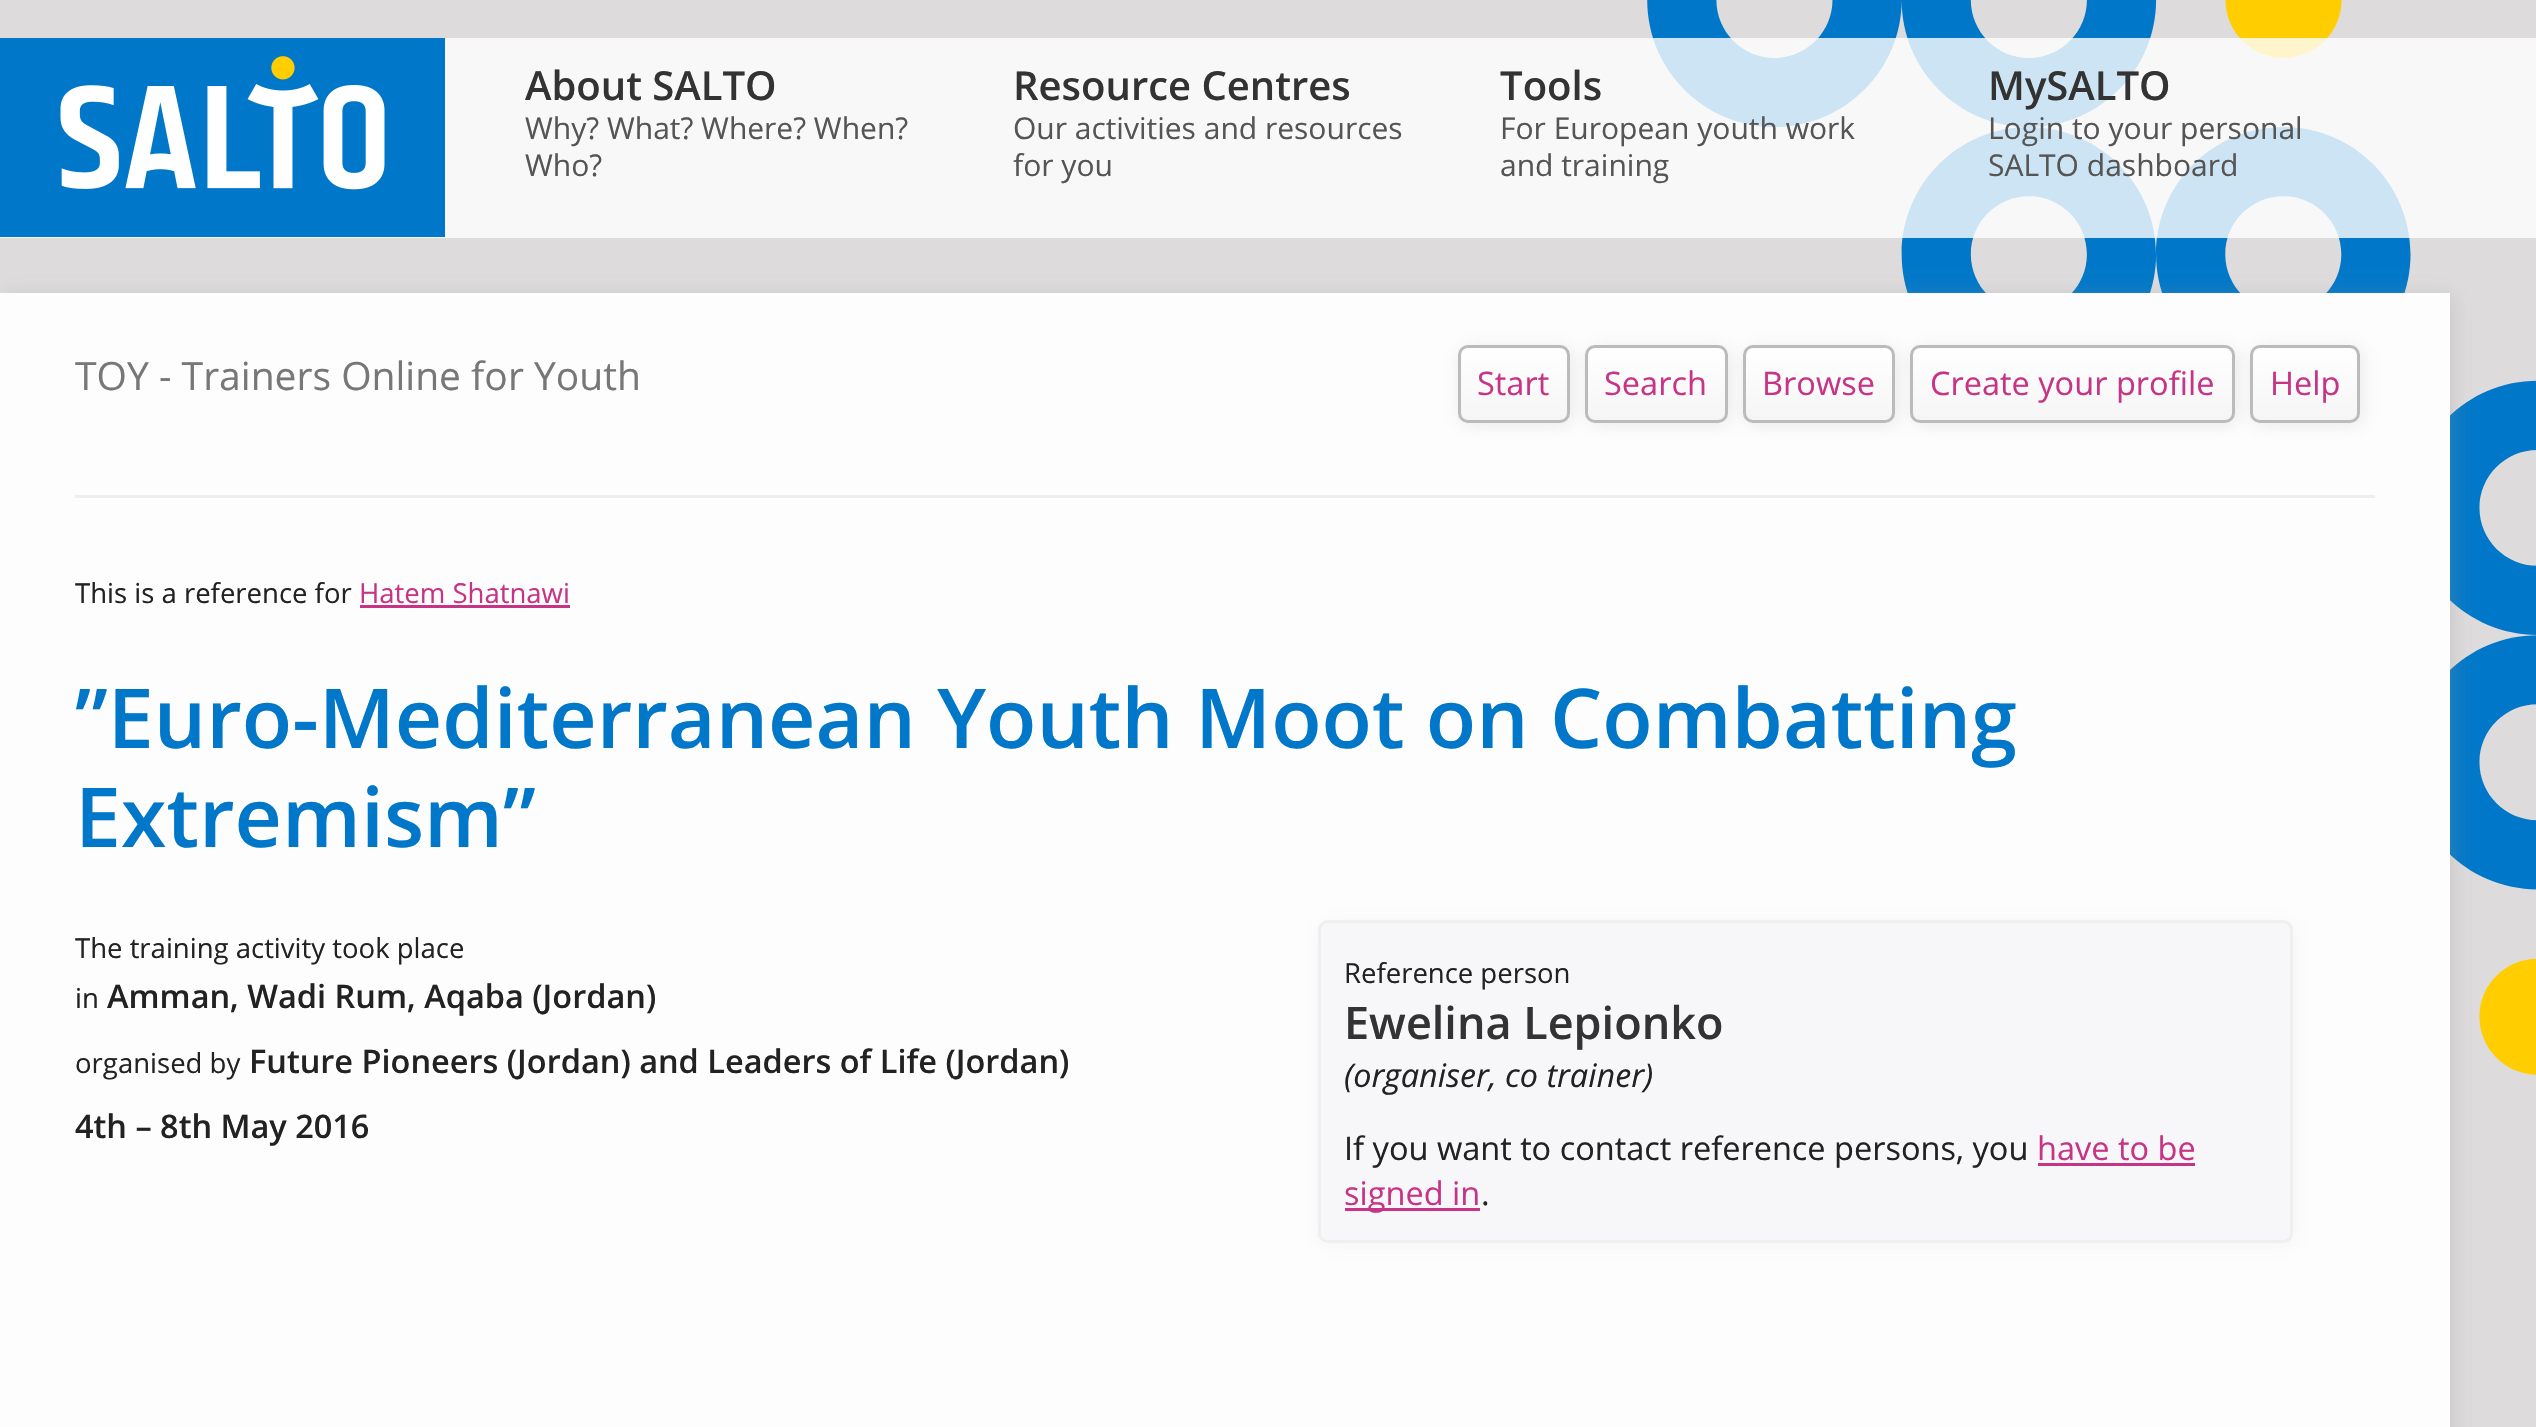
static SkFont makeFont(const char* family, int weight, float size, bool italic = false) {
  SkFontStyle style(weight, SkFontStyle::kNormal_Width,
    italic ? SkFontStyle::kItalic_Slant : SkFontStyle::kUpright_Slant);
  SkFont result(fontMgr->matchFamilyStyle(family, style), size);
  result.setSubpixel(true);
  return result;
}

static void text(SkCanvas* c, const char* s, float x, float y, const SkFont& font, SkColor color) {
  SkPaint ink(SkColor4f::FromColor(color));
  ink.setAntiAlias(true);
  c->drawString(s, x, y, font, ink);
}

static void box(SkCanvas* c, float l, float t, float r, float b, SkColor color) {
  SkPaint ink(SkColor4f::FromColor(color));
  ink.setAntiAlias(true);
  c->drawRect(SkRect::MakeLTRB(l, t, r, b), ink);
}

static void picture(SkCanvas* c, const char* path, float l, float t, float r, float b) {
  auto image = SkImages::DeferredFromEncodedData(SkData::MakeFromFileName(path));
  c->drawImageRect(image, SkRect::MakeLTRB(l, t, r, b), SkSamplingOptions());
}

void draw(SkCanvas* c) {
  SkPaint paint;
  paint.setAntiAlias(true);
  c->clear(0xffdddbdb);
  picture(c, "img_01.png", 1647, 0, 2536, 1075);
  box(c, 0, 38, 2536, 238, 0xccffffff);
  picture(c, "img_02.png", 0, 38, 445, 237);
  SkFont face1 = makeFont("Open Sans", 600, 40);
  text(c, "About SALTO", 525, 100, face1, 0xff333333);
  SkFont face2 = makeFont("Open Sans", 400, 30);
  text(c, "Why? What? Where? When?", 525, 139, face2, 0xff555555);
  text(c, "Who?", 525, 176, face2, 0xff555555);
  text(c, "Resource Centres", 1013, 100, face1, 0xff333333);
  text(c, "Our activities and resources", 1013, 139, face2, 0xff555555);
  text(c, "for you", 1013, 176, face2, 0xff555555);
  text(c, "Tools", 1500, 100, face1, 0xff333333);
  text(c, "For European youth work", 1500, 139, face2, 0xff555555);
  text(c, "and training", 1500, 176, face2, 0xff555555);
  text(c, "MySALTO", 1988, 100, face1, 0xff333333);
  text(c, "Login to your personal", 1988, 139, face2, 0xff555555);
  text(c, "SALTO dashboard", 1988, 176, face2, 0xff555555);
  paint.setColor(0x4d999999);
  paint.setMaskFilter(SkMaskFilter::MakeBlur(kNormal_SkBlurStyle, 9));
  c->drawRect(SkRect::MakeLTRB(3, 295, 2453, 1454), paint);
  paint.setMaskFilter(nullptr);
  box(c, 0, 293, 2450, 1427, 0xfffdfdfd);
  box(c, 75, 495, 2375, 498, 0xffeeeeee);
  SkFont face3 = makeFont("Open Sans", 400, 39);
  text(c, "TOY - Trainers Online for Youth", 75, 390, face3, 0xff777777);
  paint.setColor(0x33999999);
  paint.setMaskFilter(SkMaskFilter::MakeBlur(kNormal_SkBlurStyle, 9));
  c->drawRoundRect(SkRect::MakeLTRB(1460, 348, 1573, 425), 10, 10, paint);
  paint.setMaskFilter(nullptr);
  c->save();
  c->clipPath(SkPathBuilder().moveTo(1468, 345).lineTo(1560, 345).cubicTo(1565.5f, 345, 1570, 349.5f, 1570, 355).lineTo(1570, 413).cubicTo(1570, 418.5f, 1565.5f, 423, 1560, 423).lineTo(1468, 423).cubicTo(1462.5f, 423, 1458, 418.5f, 1458, 413).lineTo(1458, 355).cubicTo(1458, 349.5f, 1462.5f, 345, 1468, 345).close().detach(), true);
  {
    const SkColor colors[] = {0xffffffff, 0xfff5f5f5};
    const float stops[] = {0, 1};
    const SkPoint ends[] = {{1460, 348}, {1460, 420}};
    paint.setShader(SkGradientShader::MakeLinear(ends, colors, stops, 2, SkTileMode::kClamp));
    paint.setAlpha(255);
  }
  c->drawRect(SkRect::MakeLTRB(1458, 348, 1570, 420), paint);
  c->restore();
  paint.setStyle(SkPaint::kStroke_Style);
  paint.setStrokeWidth(3);
  paint.setShader(nullptr);
  paint.setColor(0xffbbbbbb);
  c->drawRoundRect(SkRect::MakeLTRB(1459.5f, 346.5f, 1568.5f, 421.5f), 8.5f, 8.5f, paint);
  SkFont face4 = makeFont("Open Sans", 400, 32.5f);
  text(c, "Start", 1477, 395, face4, 0xffc73485);
  paint.setStyle(SkPaint::kFill_Style);
  paint.setColor(0x33999999);
  paint.setMaskFilter(SkMaskFilter::MakeBlur(kNormal_SkBlurStyle, 9));
  c->drawRoundRect(SkRect::MakeLTRB(1588, 348, 1730, 425), 10, 10, paint);
  paint.setMaskFilter(nullptr);
  c->save();
  c->clipPath(SkPathBuilder().moveTo(1595, 345).lineTo(1718, 345).cubicTo(1723.5f, 345, 1728, 349.5f, 1728, 355).lineTo(1728, 413).cubicTo(1728, 418.5f, 1723.5f, 423, 1718, 423).lineTo(1595, 423).cubicTo(1589.5f, 423, 1585, 418.5f, 1585, 413).lineTo(1585, 355).cubicTo(1585, 349.5f, 1589.5f, 345, 1595, 345).close().detach(), true);
  {
    const SkColor colors[] = {0xffffffff, 0xfff5f5f5};
    const float stops[] = {0, 1};
    const SkPoint ends[] = {{1588, 348}, {1588, 420}};
    paint.setShader(SkGradientShader::MakeLinear(ends, colors, stops, 2, SkTileMode::kClamp));
    paint.setAlpha(255);
  }
  c->drawRect(SkRect::MakeLTRB(1585, 348, 1728, 420), paint);
  c->restore();
  paint.setStyle(SkPaint::kStroke_Style);
  paint.setShader(nullptr);
  paint.setColor(0xffbbbbbb);
  c->drawRoundRect(SkRect::MakeLTRB(1586.5f, 346.5f, 1726.5f, 421.5f), 8.5f, 8.5f, paint);
  text(c, "Search", 1604, 395, face4, 0xffc73485);
  paint.setStyle(SkPaint::kFill_Style);
  paint.setColor(0x33999999);
  paint.setMaskFilter(SkMaskFilter::MakeBlur(kNormal_SkBlurStyle, 9));
  c->drawRoundRect(SkRect::MakeLTRB(1745, 348, 1898, 425), 10, 10, paint);
  paint.setMaskFilter(nullptr);
  c->save();
  c->clipPath(SkPathBuilder().moveTo(1753, 345).lineTo(1885, 345).cubicTo(1890.5f, 345, 1895, 349.5f, 1895, 355).lineTo(1895, 413).cubicTo(1895, 418.5f, 1890.5f, 423, 1885, 423).lineTo(1753, 423).cubicTo(1747.5f, 423, 1743, 418.5f, 1743, 413).lineTo(1743, 355).cubicTo(1743, 349.5f, 1747.5f, 345, 1753, 345).close().detach(), true);
  {
    const SkColor colors[] = {0xffffffff, 0xfff5f5f5};
    const float stops[] = {0, 1};
    const SkPoint ends[] = {{1745, 348}, {1745, 420}};
    paint.setShader(SkGradientShader::MakeLinear(ends, colors, stops, 2, SkTileMode::kClamp));
    paint.setAlpha(255);
  }
  c->drawRect(SkRect::MakeLTRB(1743, 348, 1895, 420), paint);
  c->restore();
  paint.setStyle(SkPaint::kStroke_Style);
  paint.setShader(nullptr);
  paint.setColor(0xffbbbbbb);
  c->drawRoundRect(SkRect::MakeLTRB(1744.5f, 346.5f, 1893.5f, 421.5f), 8.5f, 8.5f, paint);
  text(c, "Browse", 1762, 395, face4, 0xffc73485);
  paint.setStyle(SkPaint::kFill_Style);
  paint.setColor(0x33999999);
  paint.setMaskFilter(SkMaskFilter::MakeBlur(kNormal_SkBlurStyle, 9));
  c->drawRoundRect(SkRect::MakeLTRB(1913, 348, 2238, 425), 10, 10, paint);
  paint.setMaskFilter(nullptr);
  c->save();
  c->clipPath(SkPathBuilder().moveTo(1920, 345).lineTo(2225, 345).cubicTo(2230.5f, 345, 2235, 349.5f, 2235, 355).lineTo(2235, 413).cubicTo(2235, 418.5f, 2230.5f, 423, 2225, 423).lineTo(1920, 423).cubicTo(1914.5f, 423, 1910, 418.5f, 1910, 413).lineTo(1910, 355).cubicTo(1910, 349.5f, 1914.5f, 345, 1920, 345).close().detach(), true);
  {
    const SkColor colors[] = {0xffffffff, 0xfff5f5f5};
    const float stops[] = {0, 1};
    const SkPoint ends[] = {{1913, 348}, {1913, 420}};
    paint.setShader(SkGradientShader::MakeLinear(ends, colors, stops, 2, SkTileMode::kClamp));
    paint.setAlpha(255);
  }
  c->drawRect(SkRect::MakeLTRB(1910, 348, 2235, 420), paint);
  c->restore();
  paint.setStyle(SkPaint::kStroke_Style);
  paint.setShader(nullptr);
  paint.setColor(0xffbbbbbb);
  c->drawRoundRect(SkRect::MakeLTRB(1911.5f, 346.5f, 2233.5f, 421.5f), 8.5f, 8.5f, paint);
  text(c, "Create your profile", 1930, 395, face4, 0xffc73485);
  paint.setStyle(SkPaint::kFill_Style);
  paint.setColor(0x33999999);
  paint.setMaskFilter(SkMaskFilter::MakeBlur(kNormal_SkBlurStyle, 9));
  c->drawRoundRect(SkRect::MakeLTRB(2253, 348, 2363, 425), 10, 10, paint);
  paint.setMaskFilter(nullptr);
  c->save();
  c->clipPath(SkPathBuilder().moveTo(2260, 345).lineTo(2350, 345).cubicTo(2355.5f, 345, 2360, 349.5f, 2360, 355).lineTo(2360, 413).cubicTo(2360, 418.5f, 2355.5f, 423, 2350, 423).lineTo(2260, 423).cubicTo(2254.5f, 423, 2250, 418.5f, 2250, 413).lineTo(2250, 355).cubicTo(2250, 349.5f, 2254.5f, 345, 2260, 345).close().detach(), true);
  {
    const SkColor colors[] = {0xffffffff, 0xfff5f5f5};
    const float stops[] = {0, 1};
    const SkPoint ends[] = {{2253, 348}, {2253, 420}};
    paint.setShader(SkGradientShader::MakeLinear(ends, colors, stops, 2, SkTileMode::kClamp));
    paint.setAlpha(255);
  }
  c->drawRect(SkRect::MakeLTRB(2250, 348, 2360, 420), paint);
  c->restore();
  paint.setStyle(SkPaint::kStroke_Style);
  paint.setShader(nullptr);
  paint.setColor(0xffbbbbbb);
  c->drawRoundRect(SkRect::MakeLTRB(2251.5f, 346.5f, 2358.5f, 421.5f), 8.5f, 8.5f, paint);
  text(c, "Help", 2270, 395, face4, 0xffc73485);
  SkFont face5 = makeFont("Open Sans", 400, 27.5f);
  text(c, "This is a reference for", 75, 603, face5, 0xff222222);
  text(c, "Hatem Shatnawi", 359, 603, face5, 0xffc73485);
  box(c, 360, 605, 570, 608, 0xffc73485);
  SkFont face6 = makeFont("Open Sans", 600, 82.5f);
  text(c, "”Euro-Mediterranean Youth Moot on Combatting", 75, 748, face6, 0xff0077c8);
  text(c, "Extremism”", 75, 847, face6, 0xff0077c8);
  text(c, "The training activity took place", 75, 958, face5, 0xff222222);
  text(c, "in", 75, 1008, face5, 0xff222222);
  SkFont face7 = makeFont("Open Sans", 600, 32.5f);
  text(c, "Amman, Wadi Rum, Aqaba (Jordan)", 107, 1008, face7, 0xff222222);
  text(c, "organised by", 75, 1073, face5, 0xff222222);
  text(c, "Future Pioneers (Jordan) and Leaders of Life (Jordan)", 249, 1073, face7, 0xff222222);
  text(c, "4th – 8th May 2016", 75, 1138, face7, 0xff222222);
  paint.setStyle(SkPaint::kFill_Style);
  paint.setColor(0x1a999999);
  paint.setMaskFilter(SkMaskFilter::MakeBlur(kNormal_SkBlurStyle, 9));
  c->drawRoundRect(SkRect::MakeLTRB(1320, 923, 2295, 1245), 10, 10, paint);
  paint.setMaskFilter(nullptr);
  paint.setColor(0xfff7f7f9);
  c->drawRoundRect(SkRect::MakeLTRB(1319.5f, 921.5f, 2291.5f, 1241.5f), 8.5f, 8.5f, paint);
  paint.setStyle(SkPaint::kStroke_Style);
  paint.setColor(0xffefefef);
  c->drawRoundRect(SkRect::MakeLTRB(1319.5f, 921.5f, 2291.5f, 1241.5f), 8.5f, 8.5f, paint);
  text(c, "Reference person", 1344, 983, face5, 0xff222222);
  SkFont face8 = makeFont("Open Sans", 600, 45);
  text(c, "Ewelina Lepionko", 1344, 1039, face8, 0xff333333);
  SkFont face9 = makeFont("Open Sans", 400, 32.5f, true);
  text(c, "(organiser, co trainer)", 1344, 1087, face9, 0xff222222);
  text(c, "If you want to contact reference persons, you", 1344, 1160, face4, 0xff222222);
  text(c, "have to be", 2037, 1160, face4, 0xffc73485);
  box(c, 2038, 1163, 2195, 1166, 0xffc73485);
  box(c, 1345, 1208, 1480, 1211, 0xffc73485);
  text(c, "signed in", 1344, 1205, face4, 0xffc73485);
  text(c, ".", 1481, 1205, face4, 0xff222222);
}
